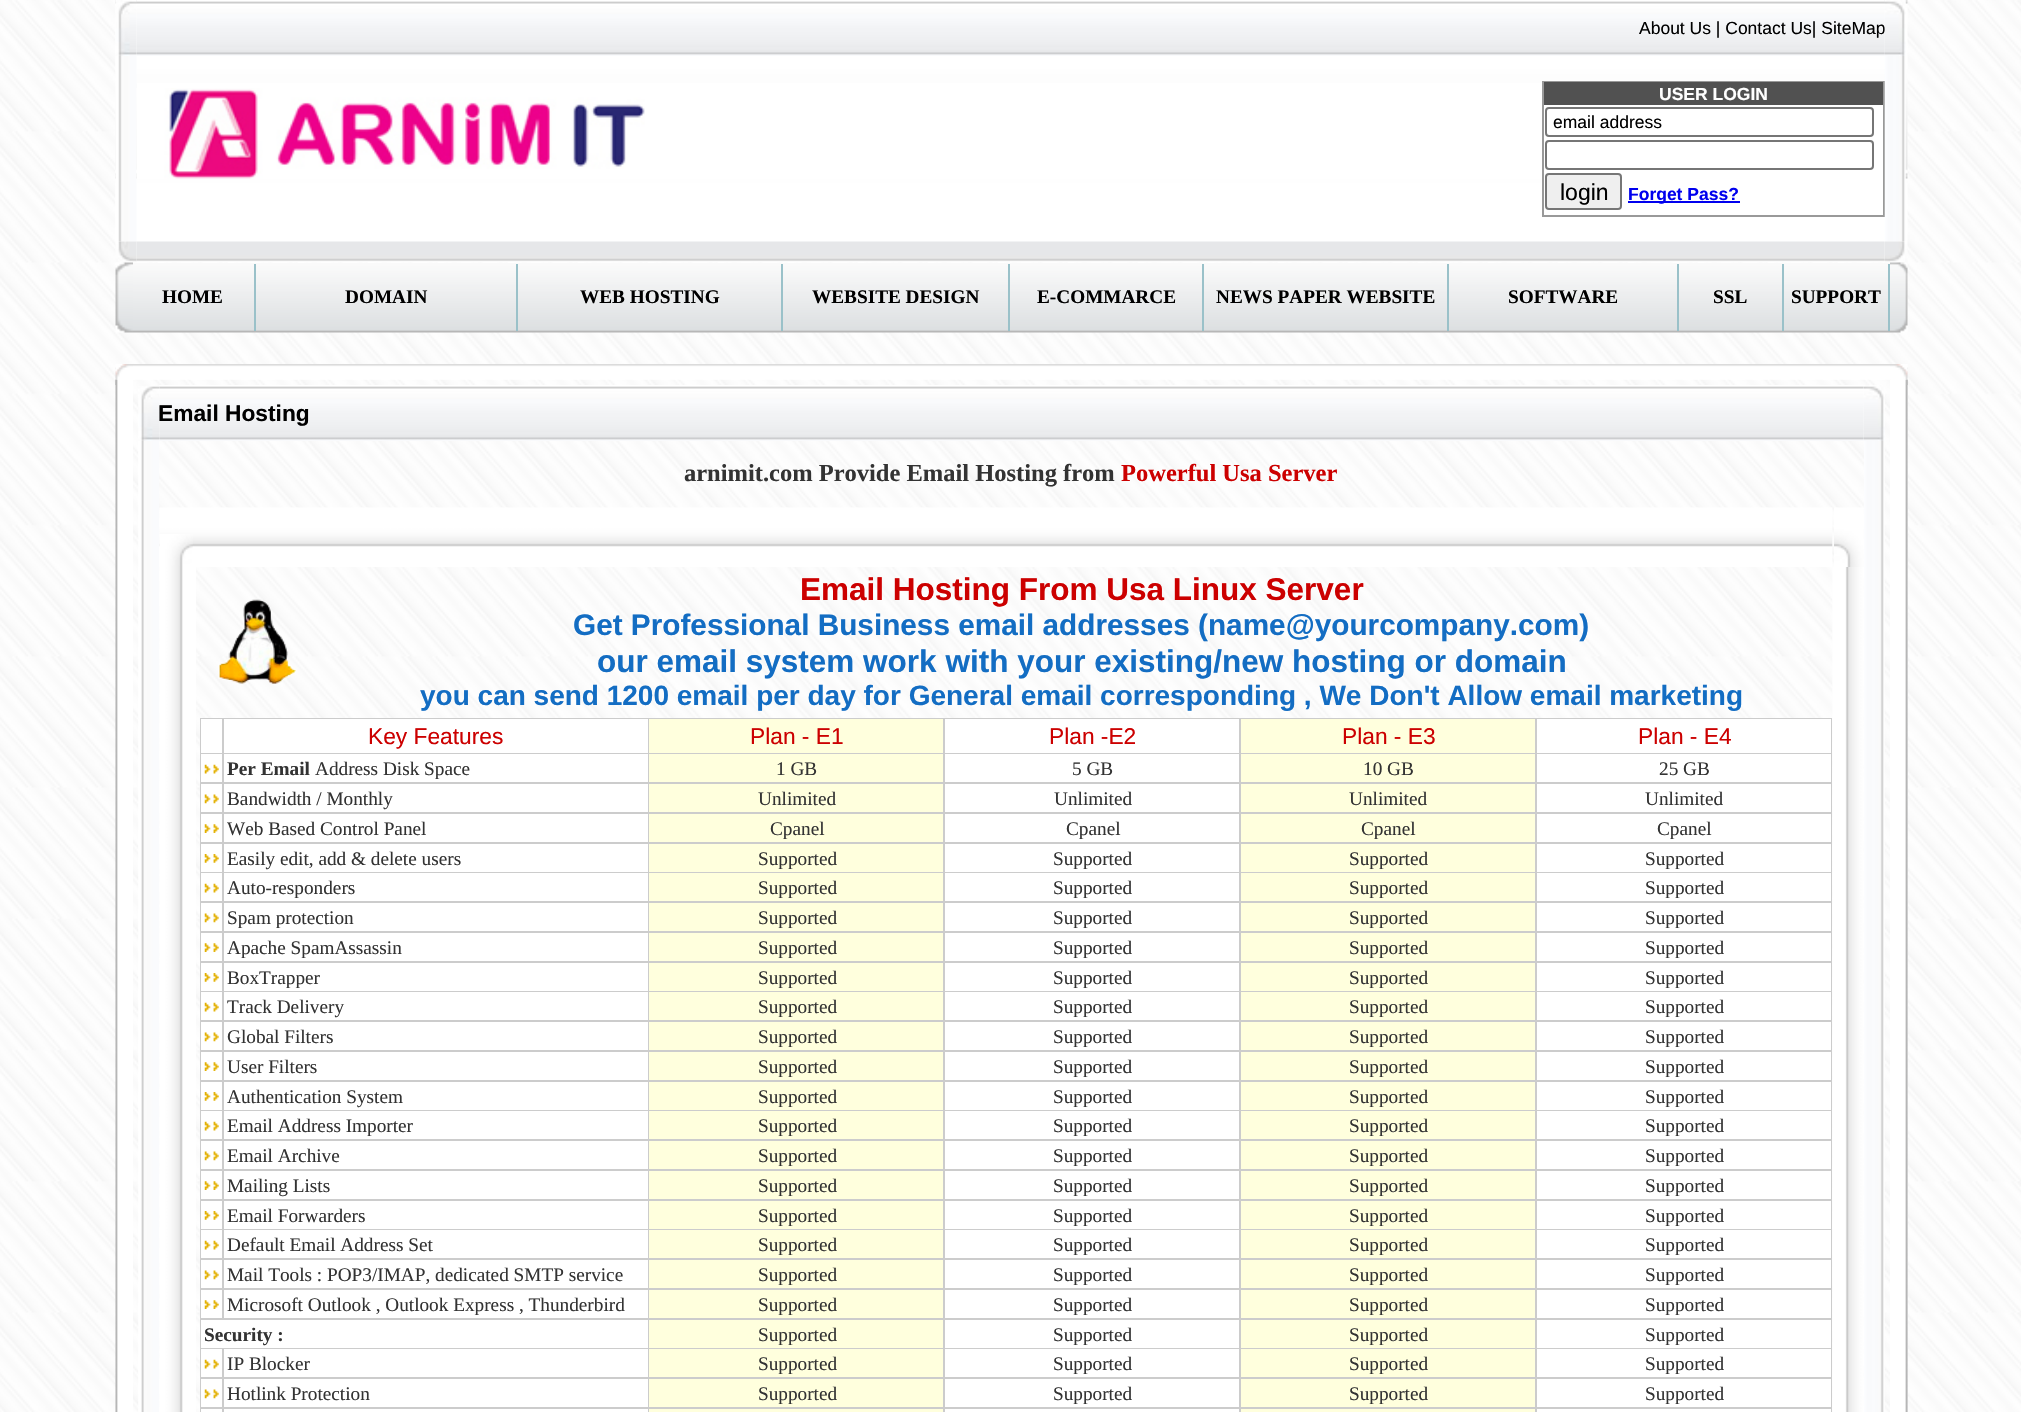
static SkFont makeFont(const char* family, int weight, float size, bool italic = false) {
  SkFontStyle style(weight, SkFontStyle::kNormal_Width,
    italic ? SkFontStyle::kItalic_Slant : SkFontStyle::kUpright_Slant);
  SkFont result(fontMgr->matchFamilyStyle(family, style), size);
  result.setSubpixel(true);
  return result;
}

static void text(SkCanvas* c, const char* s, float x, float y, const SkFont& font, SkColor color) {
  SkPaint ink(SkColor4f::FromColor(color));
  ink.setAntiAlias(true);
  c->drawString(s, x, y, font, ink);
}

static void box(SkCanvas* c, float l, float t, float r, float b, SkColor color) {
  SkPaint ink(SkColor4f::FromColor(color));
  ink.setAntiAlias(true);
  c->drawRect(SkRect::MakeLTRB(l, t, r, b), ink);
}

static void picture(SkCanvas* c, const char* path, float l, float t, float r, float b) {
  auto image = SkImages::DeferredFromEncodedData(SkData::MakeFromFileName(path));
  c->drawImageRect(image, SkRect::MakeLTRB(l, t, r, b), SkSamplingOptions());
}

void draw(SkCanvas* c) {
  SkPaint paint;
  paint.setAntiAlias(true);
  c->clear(0xffffffff);
  picture(c, "img_01.png", 0, 0, 2021, 1412);
  picture(c, "img_02.png", 115, 0, 1908, 262);
  picture(c, "img_04.png", 136, 0, 1885, 56);
  picture(c, "img_03.png", 115, 0, 137, 56);
  SkFont face1 = makeFont("Liberation Sans", 400, 17.5f);
  text(c, "About Us | Contact Us| SiteMap", 1639, 34, face1, 0xff000000);
  picture(c, "img_05.png", 1884, 0, 1906, 56);
  picture(c, "img_06.png", 115, 56, 137, 242);
  box(c, 137, 83, 1885, 179, 0xffffffff);
  picture(c, "img_07.png", 136, 88, 645, 179);
  box(c, 1542, 81, 1885, 217, 0xff999999);
  picture(c, "img_08.png", 1884, 56, 1906, 242);
  box(c, 1544, 105, 1883, 215, 0xffffffff);
  box(c, 1544, 82, 1883, 105, 0xff515151);
  SkFont face2 = makeFont("Liberation Sans", 700, 17.5f);
  text(c, "USER LOGIN", 1659, 100, face2, 0xffffffff);
  paint.setStyle(SkPaint::kStroke_Style);
  paint.setStrokeWidth(2);
  paint.setColor(0xff767676);
  c->drawRoundRect(SkRect::MakeLTRB(1546, 108, 1873, 136), 3, 3, paint);
  text(c, "email address", 1553, 128, face1, 0xff000000);
  c->drawRoundRect(SkRect::MakeLTRB(1546, 141, 1873, 169), 3, 3, paint);
  paint.setStyle(SkPaint::kFill_Style);
  paint.setColor(0xffefefef);
  c->drawRoundRect(SkRect::MakeLTRB(1546, 174, 1621, 209), 3, 3, paint);
  paint.setStyle(SkPaint::kStroke_Style);
  paint.setColor(0xff767676);
  c->drawRoundRect(SkRect::MakeLTRB(1546, 174, 1621, 209), 3, 3, paint);
  SkFont face3 = makeFont("Liberation Sans", 400, 23);
  text(c, "login", 1560, 200, face3, 0xff000000);
  box(c, 1628, 201, 1740, 203, 0xff0000ee);
  text(c, "Forget Pass?", 1628, 200, face2, 0xff0000ee);
  picture(c, "img_10.png", 136, 241, 1885, 263);
  picture(c, "img_09.png", 118, 241, 137, 263);
  picture(c, "img_11.png", 1885, 241, 1905, 262);
  picture(c, "img_12.png", 115, 262, 133, 333);
  picture(c, "img_13.png", 133, 263, 1890, 333);
  box(c, 254, 264, 256, 331, 0xff9ac1c9);
  SkFont face4 = makeFont("Liberation Serif", 700, 19.25f);
  text(c, "HOME", 162, 303, face4, 0xff000000);
  box(c, 516, 264, 518, 331, 0xff9ac1c9);
  text(c, "DOMAIN", 345, 303, face4, 0xff000000);
  box(c, 781, 264, 783, 331, 0xff9ac1c9);
  text(c, "WEB HOSTING", 580, 303, face4, 0xff000000);
  box(c, 1008, 264, 1010, 331, 0xff9ac1c9);
  text(c, "WEBSITE DESIGN", 812, 303, face4, 0xff000000);
  box(c, 1202, 264, 1204, 331, 0xff9ac1c9);
  text(c, "E-COMMARCE", 1037, 303, face4, 0xff000000);
  box(c, 1447, 264, 1449, 331, 0xff9ac1c9);
  text(c, "NEWS PAPER WEBSITE", 1216, 303, face4, 0xff000000);
  box(c, 1677, 264, 1679, 331, 0xff9ac1c9);
  text(c, "SOFTWARE", 1508, 303, face4, 0xff000000);
  box(c, 1782, 264, 1784, 331, 0xff9ac1c9);
  text(c, "SSL", 1713, 303, face4, 0xff000000);
  box(c, 1888, 264, 1890, 331, 0xff9ac1c9);
  text(c, "SUPPORT", 1791, 303, face4, 0xff000000);
  picture(c, "img_14.png", 1890, 262, 1908, 333);
  picture(c, "img_15.png", 115, 364, 116, 378);
  picture(c, "img_20.png", 115, 379, 133, 1412);
  picture(c, "img_16.png", 115, 364, 133, 380);
  picture(c, "img_17.png", 133, 364, 1890, 380);
  picture(c, "img_18.png", 1907, 364, 1908, 378);
  box(c, 1907, 380, 1908, 1412, 0xfff1f1f3);
  picture(c, "img_37.png", 1890, 379, 1908, 1412);
  picture(c, "img_19.png", 1890, 364, 1908, 380);
  picture(c, "img_21.png", 115, 379, 117, 385);
  picture(c, "img_22.png", 138, 386, 159, 441);
  picture(c, "img_23.png", 159, 385, 1864, 441);
  SkFont face5 = makeFont("Liberation Sans", 700, 22.75f);
  text(c, "Email Hosting", 158, 421, face5, 0xff000000);
  picture(c, "img_24.png", 1864, 385, 1885, 441);
  picture(c, "img_25.png", 138, 441, 159, 1412);
  SkFont face6 = makeFont("Liberation Serif", 700, 24.5f);
  text(c, "arnimit.com Provide Email Hosting from", 684, 481, face6, 0xff333333);
  text(c, "Powerful Usa Server", 1121, 481, face6, 0xffcc0000);
  picture(c, "img_26.png", 159, 507, 1833, 567);
  picture(c, "img_27.png", 159, 534, 193, 567);
  picture(c, "img_28.png", 1834, 507, 1864, 567);
  picture(c, "img_29.png", 159, 567, 196, 1412);
  picture(c, "img_30.png", 218, 599, 296, 684);
  SkFont face7 = makeFont("Liberation Sans", 700, 31.5f);
  text(c, "Email Hosting From Usa Linux Server", 800, 600, face7, 0xffcc0000);
  SkFont face8 = makeFont("Liberation Sans", 700, 29.75f);
  text(c, "Get Professional Business email addresses (name@yourcompany.com)", 573, 635, face8, 0xff136dc3);
  text(c, "our email system work with your existing/new hosting or domain", 597, 672, face7, 0xff136dc3);
  SkFont face9 = makeFont("Liberation Sans", 700, 28);
  text(c, "you can send 1200 email per day for General email corresponding , We Don't Allow email marketing", 420, 705, face9, 0xff136dc3);
  box(c, 200, 718, 1832, 1412, 0xffcccccc);
  box(c, 201, 719, 222, 753, 0xffffffff);
  box(c, 224, 719, 648, 753, 0xffffffff);
  SkFont face10 = makeFont("Liberation Sans", 400, 22.75f);
  text(c, "Key Features", 368, 744, face10, 0xffcc0000);
  box(c, 649, 719, 943, 753, 0xffffffdd);
  text(c, "Plan - E1", 750, 744, face10, 0xffcc0000);
  box(c, 945, 719, 1239, 753, 0xffffffff);
  text(c, "Plan -E2", 1049, 744, face10, 0xffcc0000);
  box(c, 1241, 719, 1535, 753, 0xffffffdd);
  text(c, "Plan - E3", 1342, 744, face10, 0xffcc0000);
  box(c, 1537, 719, 1831, 753, 0xffffffff);
  text(c, "Plan - E4", 1638, 744, face10, 0xffcc0000);
  box(c, 201, 754, 222, 782, 0xffffffff);
  picture(c, "img_31.png", 204, 764, 219, 774);
  box(c, 224, 754, 648, 782, 0xffffffff);
  text(c, "Per Email", 227, 775, face4, 0xff333333);
  SkFont face11 = makeFont("Liberation Serif", 400, 19.25f);
  text(c, "Address Disk Space", 315, 775, face11, 0xff333333);
  box(c, 649, 754, 943, 782, 0xffffffdd);
  text(c, "1 GB", 776, 775, face11, 0xff333333);
  box(c, 945, 754, 1239, 782, 0xffffffff);
  text(c, "5 GB", 1072, 775, face11, 0xff333333);
  box(c, 1241, 754, 1535, 782, 0xffffffdd);
  text(c, "10 GB", 1363, 775, face11, 0xff333333);
  box(c, 1537, 754, 1831, 782, 0xffffffff);
  text(c, "25 GB", 1659, 775, face11, 0xff333333);
  box(c, 201, 784, 222, 812, 0xffffffff);
  picture(c, "img_32.png", 204, 794, 219, 804);
  box(c, 224, 784, 648, 812, 0xffffffff);
  text(c, "Bandwidth / Monthly", 227, 805, face11, 0xff333333);
  box(c, 649, 784, 943, 812, 0xffffffdd);
  text(c, "Unlimited", 758, 805, face11, 0xff333333);
  box(c, 945, 784, 1239, 812, 0xffffffff);
  text(c, "Unlimited", 1054, 805, face11, 0xff333333);
  box(c, 1241, 784, 1535, 812, 0xffffffdd);
  text(c, "Unlimited", 1349, 805, face11, 0xff333333);
  box(c, 1537, 784, 1831, 812, 0xffffffff);
  text(c, "Unlimited", 1645, 805, face11, 0xff333333);
  box(c, 201, 814, 222, 842, 0xffffffff);
  picture(c, "img_33.png", 204, 824, 219, 833);
  box(c, 224, 814, 648, 842, 0xffffffff);
  text(c, "Web Based Control Panel", 227, 835, face11, 0xff333333);
  box(c, 649, 814, 943, 842, 0xffffffdd);
  text(c, "Cpanel", 770, 835, face11, 0xff333333);
  box(c, 945, 814, 1239, 842, 0xffffffff);
  text(c, "Cpanel", 1066, 835, face11, 0xff333333);
  box(c, 1241, 814, 1535, 842, 0xffffffdd);
  text(c, "Cpanel", 1361, 835, face11, 0xff333333);
  box(c, 1537, 814, 1831, 842, 0xffffffff);
  text(c, "Cpanel", 1657, 835, face11, 0xff333333);
  box(c, 201, 844, 222, 872, 0xffffffff);
  picture(c, "img_34.png", 204, 854, 219, 863);
  box(c, 224, 844, 648, 872, 0xffffffff);
  text(c, "Easily edit, add & delete users", 227, 865, face11, 0xff333333);
  box(c, 649, 844, 943, 872, 0xffffffdd);
  text(c, "Supported", 758, 865, face11, 0xff333333);
  box(c, 945, 844, 1239, 872, 0xffffffff);
  text(c, "Supported", 1053, 865, face11, 0xff333333);
  box(c, 1241, 844, 1535, 872, 0xffffffdd);
  text(c, "Supported", 1349, 865, face11, 0xff333333);
  box(c, 1537, 844, 1831, 872, 0xffffffff);
  text(c, "Supported", 1645, 865, face11, 0xff333333);
  box(c, 201, 873, 222, 901, 0xffffffff);
  picture(c, "img_31.png", 204, 883, 219, 893);
  box(c, 224, 873, 648, 901, 0xffffffff);
  text(c, "Auto-responders", 227, 894, face11, 0xff333333);
  box(c, 649, 873, 943, 901, 0xffffffdd);
  text(c, "Supported", 758, 894, face11, 0xff333333);
  box(c, 945, 873, 1239, 901, 0xffffffff);
  text(c, "Supported", 1053, 894, face11, 0xff333333);
  box(c, 1241, 873, 1535, 901, 0xffffffdd);
  text(c, "Supported", 1349, 894, face11, 0xff333333);
  box(c, 1537, 873, 1831, 901, 0xffffffff);
  text(c, "Supported", 1645, 894, face11, 0xff333333);
  box(c, 201, 903, 222, 931, 0xffffffff);
  picture(c, "img_32.png", 204, 913, 219, 923);
  box(c, 224, 903, 648, 931, 0xffffffff);
  text(c, "Spam protection", 227, 924, face11, 0xff333333);
  box(c, 649, 903, 943, 931, 0xffffffdd);
  text(c, "Supported", 758, 924, face11, 0xff333333);
  box(c, 945, 903, 1239, 931, 0xffffffff);
  text(c, "Supported", 1053, 924, face11, 0xff333333);
  box(c, 1241, 903, 1535, 931, 0xffffffdd);
  text(c, "Supported", 1349, 924, face11, 0xff333333);
  box(c, 1537, 903, 1831, 931, 0xffffffff);
  text(c, "Supported", 1645, 924, face11, 0xff333333);
  box(c, 201, 933, 222, 961, 0xffffffff);
  picture(c, "img_33.png", 204, 943, 219, 952);
  box(c, 224, 933, 648, 961, 0xffffffff);
  text(c, "Apache SpamAssassin", 227, 954, face11, 0xff333333);
  box(c, 649, 933, 943, 961, 0xffffffdd);
  text(c, "Supported", 758, 954, face11, 0xff333333);
  box(c, 945, 933, 1239, 961, 0xffffffff);
  text(c, "Supported", 1053, 954, face11, 0xff333333);
  box(c, 1241, 933, 1535, 961, 0xffffffdd);
  text(c, "Supported", 1349, 954, face11, 0xff333333);
  box(c, 1537, 933, 1831, 961, 0xffffffff);
  text(c, "Supported", 1645, 954, face11, 0xff333333);
  box(c, 201, 963, 222, 991, 0xffffffff);
  picture(c, "img_34.png", 204, 973, 219, 982);
  box(c, 224, 963, 648, 991, 0xffffffff);
  text(c, "BoxTrapper", 227, 984, face11, 0xff333333);
  box(c, 649, 963, 943, 991, 0xffffffdd);
  text(c, "Supported", 758, 984, face11, 0xff333333);
  box(c, 945, 963, 1239, 991, 0xffffffff);
  text(c, "Supported", 1053, 984, face11, 0xff333333);
  box(c, 1241, 963, 1535, 991, 0xffffffdd);
  text(c, "Supported", 1349, 984, face11, 0xff333333);
  box(c, 1537, 963, 1831, 991, 0xffffffff);
  text(c, "Supported", 1645, 984, face11, 0xff333333);
  box(c, 201, 992, 222, 1020, 0xffffffff);
  picture(c, "img_31.png", 204, 1002, 219, 1012);
  box(c, 224, 992, 648, 1020, 0xffffffff);
  text(c, "Track Delivery", 227, 1013, face11, 0xff333333);
  box(c, 649, 992, 943, 1020, 0xffffffdd);
  text(c, "Supported", 758, 1013, face11, 0xff333333);
  box(c, 945, 992, 1239, 1020, 0xffffffff);
  text(c, "Supported", 1053, 1013, face11, 0xff333333);
  box(c, 1241, 992, 1535, 1020, 0xffffffdd);
  text(c, "Supported", 1349, 1013, face11, 0xff333333);
  box(c, 1537, 992, 1831, 1020, 0xffffffff);
  text(c, "Supported", 1645, 1013, face11, 0xff333333);
  box(c, 201, 1022, 222, 1050, 0xffffffff);
  picture(c, "img_32.png", 204, 1032, 219, 1042);
  box(c, 224, 1022, 648, 1050, 0xffffffff);
  text(c, "Global Filters", 227, 1043, face11, 0xff333333);
  box(c, 649, 1022, 943, 1050, 0xffffffdd);
  text(c, "Supported", 758, 1043, face11, 0xff333333);
  box(c, 945, 1022, 1239, 1050, 0xffffffff);
  text(c, "Supported", 1053, 1043, face11, 0xff333333);
  box(c, 1241, 1022, 1535, 1050, 0xffffffdd);
  text(c, "Supported", 1349, 1043, face11, 0xff333333);
  box(c, 1537, 1022, 1831, 1050, 0xffffffff);
  text(c, "Supported", 1645, 1043, face11, 0xff333333);
  box(c, 201, 1052, 222, 1080, 0xffffffff);
  picture(c, "img_33.png", 204, 1062, 219, 1071);
  box(c, 224, 1052, 648, 1080, 0xffffffff);
  text(c, "User Filters", 227, 1073, face11, 0xff333333);
  box(c, 649, 1052, 943, 1080, 0xffffffdd);
  text(c, "Supported", 758, 1073, face11, 0xff333333);
  box(c, 945, 1052, 1239, 1080, 0xffffffff);
  text(c, "Supported", 1053, 1073, face11, 0xff333333);
  box(c, 1241, 1052, 1535, 1080, 0xffffffdd);
  text(c, "Supported", 1349, 1073, face11, 0xff333333);
  box(c, 1537, 1052, 1831, 1080, 0xffffffff);
  text(c, "Supported", 1645, 1073, face11, 0xff333333);
  box(c, 201, 1082, 222, 1110, 0xffffffff);
  picture(c, "img_34.png", 204, 1092, 219, 1101);
  box(c, 224, 1082, 648, 1110, 0xffffffff);
  text(c, "Authentication System", 227, 1103, face11, 0xff333333);
  box(c, 649, 1082, 943, 1110, 0xffffffdd);
  text(c, "Supported", 758, 1103, face11, 0xff333333);
  box(c, 945, 1082, 1239, 1110, 0xffffffff);
  text(c, "Supported", 1053, 1103, face11, 0xff333333);
  box(c, 1241, 1082, 1535, 1110, 0xffffffdd);
  text(c, "Supported", 1349, 1103, face11, 0xff333333);
  box(c, 1537, 1082, 1831, 1110, 0xffffffff);
  text(c, "Supported", 1645, 1103, face11, 0xff333333);
  box(c, 201, 1111, 222, 1139, 0xffffffff);
  picture(c, "img_31.png", 204, 1121, 219, 1131);
  box(c, 224, 1111, 648, 1139, 0xffffffff);
  text(c, "Email Address Importer", 227, 1132, face11, 0xff333333);
  box(c, 649, 1111, 943, 1139, 0xffffffdd);
  text(c, "Supported", 758, 1132, face11, 0xff333333);
  box(c, 945, 1111, 1239, 1139, 0xffffffff);
  text(c, "Supported", 1053, 1132, face11, 0xff333333);
  box(c, 1241, 1111, 1535, 1139, 0xffffffdd);
  text(c, "Supported", 1349, 1132, face11, 0xff333333);
  box(c, 1537, 1111, 1831, 1139, 0xffffffff);
  text(c, "Supported", 1645, 1132, face11, 0xff333333);
  box(c, 201, 1141, 222, 1169, 0xffffffff);
  picture(c, "img_32.png", 204, 1151, 219, 1161);
  box(c, 224, 1141, 648, 1169, 0xffffffff);
  text(c, "Email Archive", 227, 1162, face11, 0xff333333);
  box(c, 649, 1141, 943, 1169, 0xffffffdd);
  text(c, "Supported", 758, 1162, face11, 0xff333333);
  box(c, 945, 1141, 1239, 1169, 0xffffffff);
  text(c, "Supported", 1053, 1162, face11, 0xff333333);
  box(c, 1241, 1141, 1535, 1169, 0xffffffdd);
  text(c, "Supported", 1349, 1162, face11, 0xff333333);
  box(c, 1537, 1141, 1831, 1169, 0xffffffff);
  text(c, "Supported", 1645, 1162, face11, 0xff333333);
  box(c, 201, 1171, 222, 1199, 0xffffffff);
  picture(c, "img_33.png", 204, 1181, 219, 1190);
  box(c, 224, 1171, 648, 1199, 0xffffffff);
  text(c, "Mailing Lists", 227, 1192, face11, 0xff333333);
  box(c, 649, 1171, 943, 1199, 0xffffffdd);
  text(c, "Supported", 758, 1192, face11, 0xff333333);
  box(c, 945, 1171, 1239, 1199, 0xffffffff);
  text(c, "Supported", 1053, 1192, face11, 0xff333333);
  box(c, 1241, 1171, 1535, 1199, 0xffffffdd);
  text(c, "Supported", 1349, 1192, face11, 0xff333333);
  box(c, 1537, 1171, 1831, 1199, 0xffffffff);
  text(c, "Supported", 1645, 1192, face11, 0xff333333);
  box(c, 201, 1201, 222, 1229, 0xffffffff);
  picture(c, "img_34.png", 204, 1211, 219, 1220);
  box(c, 224, 1201, 648, 1229, 0xffffffff);
  text(c, "Email Forwarders", 227, 1222, face11, 0xff333333);
  box(c, 649, 1201, 943, 1229, 0xffffffdd);
  text(c, "Supported", 758, 1222, face11, 0xff333333);
  box(c, 945, 1201, 1239, 1229, 0xffffffff);
  text(c, "Supported", 1053, 1222, face11, 0xff333333);
  box(c, 1241, 1201, 1535, 1229, 0xffffffdd);
  text(c, "Supported", 1349, 1222, face11, 0xff333333);
  box(c, 1537, 1201, 1831, 1229, 0xffffffff);
  text(c, "Supported", 1645, 1222, face11, 0xff333333);
  box(c, 201, 1230, 222, 1258, 0xffffffff);
  picture(c, "img_31.png", 204, 1240, 219, 1250);
  box(c, 224, 1230, 648, 1258, 0xffffffff);
  text(c, "Default Email Address Set", 227, 1251, face11, 0xff333333);
  box(c, 649, 1230, 943, 1258, 0xffffffdd);
  text(c, "Supported", 758, 1251, face11, 0xff333333);
  box(c, 945, 1230, 1239, 1258, 0xffffffff);
  text(c, "Supported", 1053, 1251, face11, 0xff333333);
  box(c, 1241, 1230, 1535, 1258, 0xffffffdd);
  text(c, "Supported", 1349, 1251, face11, 0xff333333);
  box(c, 1537, 1230, 1831, 1258, 0xffffffff);
  text(c, "Supported", 1645, 1251, face11, 0xff333333);
  box(c, 201, 1260, 222, 1288, 0xffffffff);
  picture(c, "img_32.png", 204, 1270, 219, 1280);
  box(c, 224, 1260, 648, 1288, 0xffffffff);
  text(c, "Mail Tools : POP3/IMAP, dedicated SMTP service", 227, 1281, face11, 0xff333333);
  box(c, 649, 1260, 943, 1288, 0xffffffdd);
  text(c, "Supported", 758, 1281, face11, 0xff333333);
  box(c, 945, 1260, 1239, 1288, 0xffffffff);
  text(c, "Supported", 1053, 1281, face11, 0xff333333);
  box(c, 1241, 1260, 1535, 1288, 0xffffffdd);
  text(c, "Supported", 1349, 1281, face11, 0xff333333);
  box(c, 1537, 1260, 1831, 1288, 0xffffffff);
  text(c, "Supported", 1645, 1281, face11, 0xff333333);
  box(c, 201, 1290, 222, 1318, 0xffffffff);
  picture(c, "img_33.png", 204, 1300, 219, 1309);
  box(c, 224, 1290, 648, 1318, 0xffffffff);
  text(c, "Microsoft Outlook , Outlook Express , Thunderbird", 227, 1311, face11, 0xff333333);
  box(c, 649, 1290, 943, 1318, 0xffffffdd);
  text(c, "Supported", 758, 1311, face11, 0xff333333);
  box(c, 945, 1290, 1239, 1318, 0xffffffff);
  text(c, "Supported", 1053, 1311, face11, 0xff333333);
  box(c, 1241, 1290, 1535, 1318, 0xffffffdd);
  text(c, "Supported", 1349, 1311, face11, 0xff333333);
  box(c, 1537, 1290, 1831, 1318, 0xffffffff);
  text(c, "Supported", 1645, 1311, face11, 0xff333333);
  box(c, 201, 1320, 648, 1348, 0xffffffff);
  text(c, "Security :", 204, 1341, face4, 0xff333333);
  box(c, 649, 1320, 943, 1348, 0xffffffdd);
  text(c, "Supported", 758, 1341, face11, 0xff333333);
  box(c, 945, 1320, 1239, 1348, 0xffffffff);
  text(c, "Supported", 1053, 1341, face11, 0xff333333);
  box(c, 1241, 1320, 1535, 1348, 0xffffffdd);
  text(c, "Supported", 1349, 1341, face11, 0xff333333);
  box(c, 1537, 1320, 1831, 1348, 0xffffffff);
  text(c, "Supported", 1645, 1341, face11, 0xff333333);
  box(c, 201, 1349, 222, 1377, 0xffffffff);
  picture(c, "img_31.png", 204, 1359, 219, 1369);
  box(c, 224, 1349, 648, 1377, 0xffffffff);
  text(c, "IP Blocker", 227, 1370, face11, 0xff333333);
  box(c, 649, 1349, 943, 1377, 0xffffffdd);
  text(c, "Supported", 758, 1370, face11, 0xff333333);
  box(c, 945, 1349, 1239, 1377, 0xffffffff);
  text(c, "Supported", 1053, 1370, face11, 0xff333333);
  box(c, 1241, 1349, 1535, 1377, 0xffffffdd);
  text(c, "Supported", 1349, 1370, face11, 0xff333333);
  box(c, 1537, 1349, 1831, 1377, 0xffffffff);
  text(c, "Supported", 1645, 1370, face11, 0xff333333);
  box(c, 201, 1379, 222, 1407, 0xffffffff);
  picture(c, "img_32.png", 204, 1389, 219, 1399);
  box(c, 224, 1379, 648, 1407, 0xffffffff);
  text(c, "Hotlink Protection", 227, 1400, face11, 0xff333333);
  box(c, 649, 1379, 943, 1407, 0xffffffdd);
  text(c, "Supported", 758, 1400, face11, 0xff333333);
  box(c, 945, 1379, 1239, 1407, 0xffffffff);
  text(c, "Supported", 1053, 1400, face11, 0xff333333);
  box(c, 1241, 1379, 1535, 1407, 0xffffffdd);
  text(c, "Supported", 1349, 1400, face11, 0xff333333);
  box(c, 1537, 1379, 1831, 1407, 0xffffffff);
  text(c, "Supported", 1645, 1400, face11, 0xff333333);
  box(c, 201, 1409, 222, 1412, 0xffffffff);
  box(c, 224, 1409, 648, 1412, 0xffffffff);
  box(c, 649, 1409, 943, 1412, 0xffffffdd);
  box(c, 945, 1409, 1239, 1412, 0xffffffff);
  box(c, 1241, 1409, 1535, 1412, 0xffffffdd);
  box(c, 1537, 1409, 1831, 1412, 0xffffffff);
  picture(c, "img_35.png", 1832, 567, 1864, 1412);
  picture(c, "img_36.png", 1864, 441, 1885, 1412);
  picture(c, "img_38.png", 1906, 379, 1908, 385);
}
